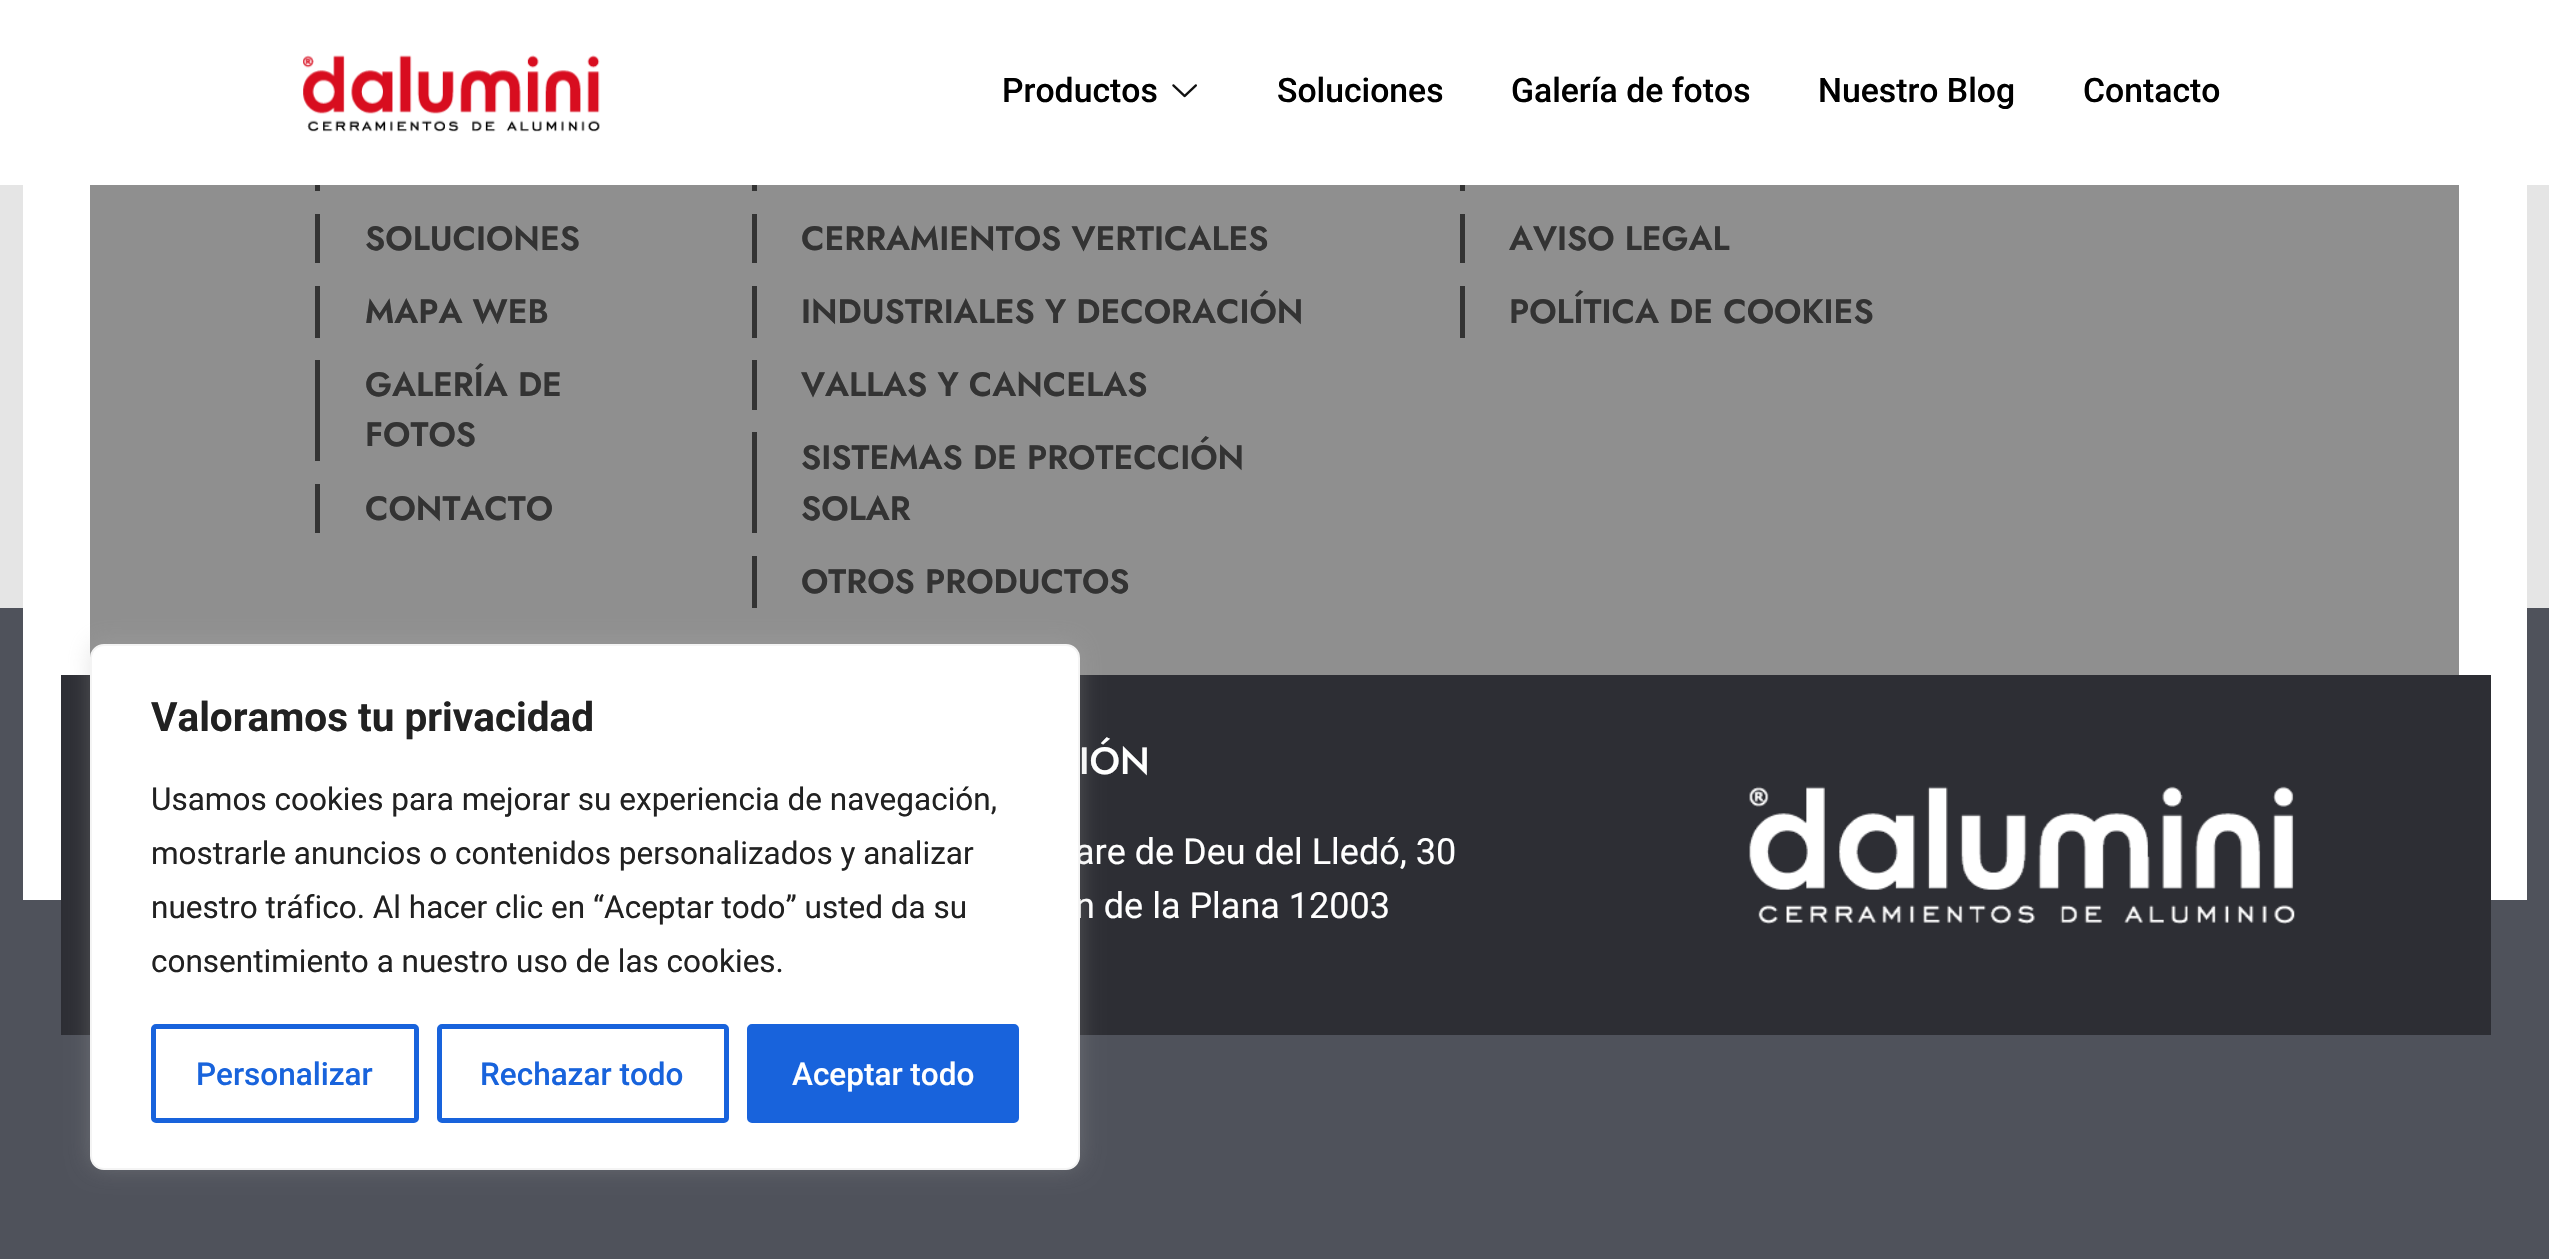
static SkFont makeFont(const char* family, int weight, float size, bool italic = false) {
  SkFontStyle style(weight, SkFontStyle::kNormal_Width,
    italic ? SkFontStyle::kItalic_Slant : SkFontStyle::kUpright_Slant);
  SkFont result(fontMgr->matchFamilyStyle(family, style), size);
  result.setSubpixel(true);
  return result;
}

static void text(SkCanvas* c, const char* s, float x, float y, const SkFont& font, SkColor color) {
  SkPaint ink(SkColor4f::FromColor(color));
  ink.setAntiAlias(true);
  c->drawString(s, x, y, font, ink);
}

static void box(SkCanvas* c, float l, float t, float r, float b, SkColor color) {
  SkPaint ink(SkColor4f::FromColor(color));
  ink.setAntiAlias(true);
  c->drawRect(SkRect::MakeLTRB(l, t, r, b), ink);
}

static void picture(SkCanvas* c, const char* path, float l, float t, float r, float b) {
  auto image = SkImages::DeferredFromEncodedData(SkData::MakeFromFileName(path));
  c->drawImageRect(image, SkRect::MakeLTRB(l, t, r, b), SkSamplingOptions());
}

void draw(SkCanvas* c) {
  SkPaint paint;
  paint.setAntiAlias(true);
  c->clear(0xffe5e5e5);
  box(c, 0, 0, 2549, 185, 0xffffffff);
  picture(c, "img_01.png", 303, 55, 600, 132);
  SkFont face1 = makeFont("Roboto", 500, 33.75f);
  text(c, "Productos", 1002, 102, face1, 0xff000000);
  picture(c, "img_02.png", 1172, 84, 1197, 98);
  text(c, "Soluciones", 1277, 102, face1, 0xff000000);
  text(c, "Galería de fotos", 1511, 102, face1, 0xff000000);
  text(c, "Nuestro Blog", 1818, 102, face1, 0xff000000);
  text(c, "Contacto", 2083, 102, face1, 0xff000000);
  box(c, 0, 608, 2549, 1259, 0xff4f525b);
  box(c, 23, 185, 2527, 900, 0xffffffff);
  box(c, 90, 185, 2459, 675, 0xff8f8f8f);
  box(c, 315, 185, 320, 191, 0xff333333);
  box(c, 315, 214, 320, 263, 0xff333333);
  SkFont face2 = makeFont("Jost", 600, 33.75f);
  text(c, "SOLUCIONES", 365, 250, face2, 0xff333333);
  box(c, 315, 286, 320, 338, 0xff333333);
  text(c, "MAPA WEB", 365, 323, face2, 0xff333333);
  box(c, 315, 360, 320, 461, 0xff333333);
  text(c, "GALERÍA DE", 365, 396, face2, 0xff333333);
  text(c, "FOTOS", 365, 446, face2, 0xff333333);
  box(c, 315, 484, 320, 533, 0xff333333);
  text(c, "CONTACTO", 365, 520, face2, 0xff333333);
  box(c, 752, 185, 757, 191, 0xff333333);
  box(c, 752, 214, 757, 263, 0xff333333);
  text(c, "CERRAMIENTOS VERTICALES", 801, 250, face2, 0xff333333);
  box(c, 752, 286, 757, 338, 0xff333333);
  text(c, "INDUSTRIALES Y DECORACIÓN", 801, 323, face2, 0xff333333);
  box(c, 752, 360, 757, 410, 0xff333333);
  text(c, "VALLAS Y CANCELAS", 801, 396, face2, 0xff333333);
  box(c, 752, 432, 757, 533, 0xff333333);
  text(c, "SISTEMAS DE PROTECCIÓN", 801, 469, face2, 0xff333333);
  text(c, "SOLAR", 801, 520, face2, 0xff333333);
  box(c, 752, 556, 757, 608, 0xff333333);
  text(c, "OTROS PRODUCTOS", 801, 593, face2, 0xff333333);
  box(c, 1460, 185, 1465, 191, 0xff333333);
  box(c, 1460, 214, 1465, 263, 0xff333333);
  text(c, "AVISO LEGAL", 1509, 250, face2, 0xff333333);
  box(c, 1460, 286, 1465, 338, 0xff333333);
  text(c, "POLÍTICA DE COOKIES", 1509, 323, face2, 0xff333333);
  box(c, 61, 675, 2491, 1035, 0xff2d2e34);
  SkFont face3 = makeFont("Jost", 500, 38);
  text(c, "IÓN", 1079, 774, face3, 0xffffffff);
  SkFont face4 = makeFont("Roboto", 400, 36);
  text(c, "are de Deu del Lledó, 30", 1075, 864, face4, 0xffffffff);
  text(c, "n de la Plana 12003", 1075, 918, face4, 0xffffffff);
  picture(c, "img_03.png", 1749, 786, 2295, 924);
  paint.setColor(0x4dacabab);
  paint.setMaskFilter(SkMaskFilter::MakeBlur(kNormal_SkBlurStyle, 11));
  c->drawRoundRect(SkRect::MakeLTRB(90, 641, 1080, 1168), 14, 14, paint);
  paint.setMaskFilter(nullptr);
  paint.setColor(0xffffffff);
  c->drawRoundRect(SkRect::MakeLTRB(91, 645, 1079, 1169), 13, 13, paint);
  paint.setStyle(SkPaint::kStroke_Style);
  paint.setStrokeWidth(2);
  paint.setColor(0xfff4f4f4);
  c->drawRoundRect(SkRect::MakeLTRB(91, 645, 1079, 1169), 13, 13, paint);
  SkFont face5 = makeFont("Roboto", 700, 40.5f);
  text(c, "Valoramos tu privacidad", 151, 731, face5, 0xff212121);
  SkFont face6 = makeFont("Roboto", 400, 31.5f);
  text(c, "Usamos cookies para mejorar su experiencia de navegación,", 151, 810, face6, 0xff212121);
  text(c, "mostrarle anuncios o contenidos personalizados y analizar", 151, 864, face6, 0xff212121);
  text(c, "nuestro tráfico. Al hacer clic en “Aceptar todo” usted da su", 151, 918, face6, 0xff212121);
  text(c, "consentimiento a nuestro uso de las cookies.", 151, 972, face6, 0xff212121);
  paint.setStrokeWidth(5);
  paint.setColor(0xff1863dc);
  c->drawRoundRect(SkRect::MakeLTRB(153.5f, 1026.5f, 416.5f, 1120.5f), 2.5f, 2.5f, paint);
  SkFont face7 = makeFont("Roboto", 500, 31.5f);
  text(c, "Personalizar", 196, 1085, face7, 0xff1863dc);
  c->drawRoundRect(SkRect::MakeLTRB(439.5f, 1026.5f, 726.5f, 1120.5f), 2.5f, 2.5f, paint);
  text(c, "Rechazar todo", 480, 1085, face7, 0xff1863dc);
  paint.setStyle(SkPaint::kFill_Style);
  c->drawRoundRect(SkRect::MakeLTRB(749.5f, 1026.5f, 1016.5f, 1120.5f), 2.5f, 2.5f, paint);
  paint.setStyle(SkPaint::kStroke_Style);
  c->drawRoundRect(SkRect::MakeLTRB(749.5f, 1026.5f, 1016.5f, 1120.5f), 2.5f, 2.5f, paint);
  text(c, "Aceptar todo", 792, 1085, face7, 0xffffffff);
}
